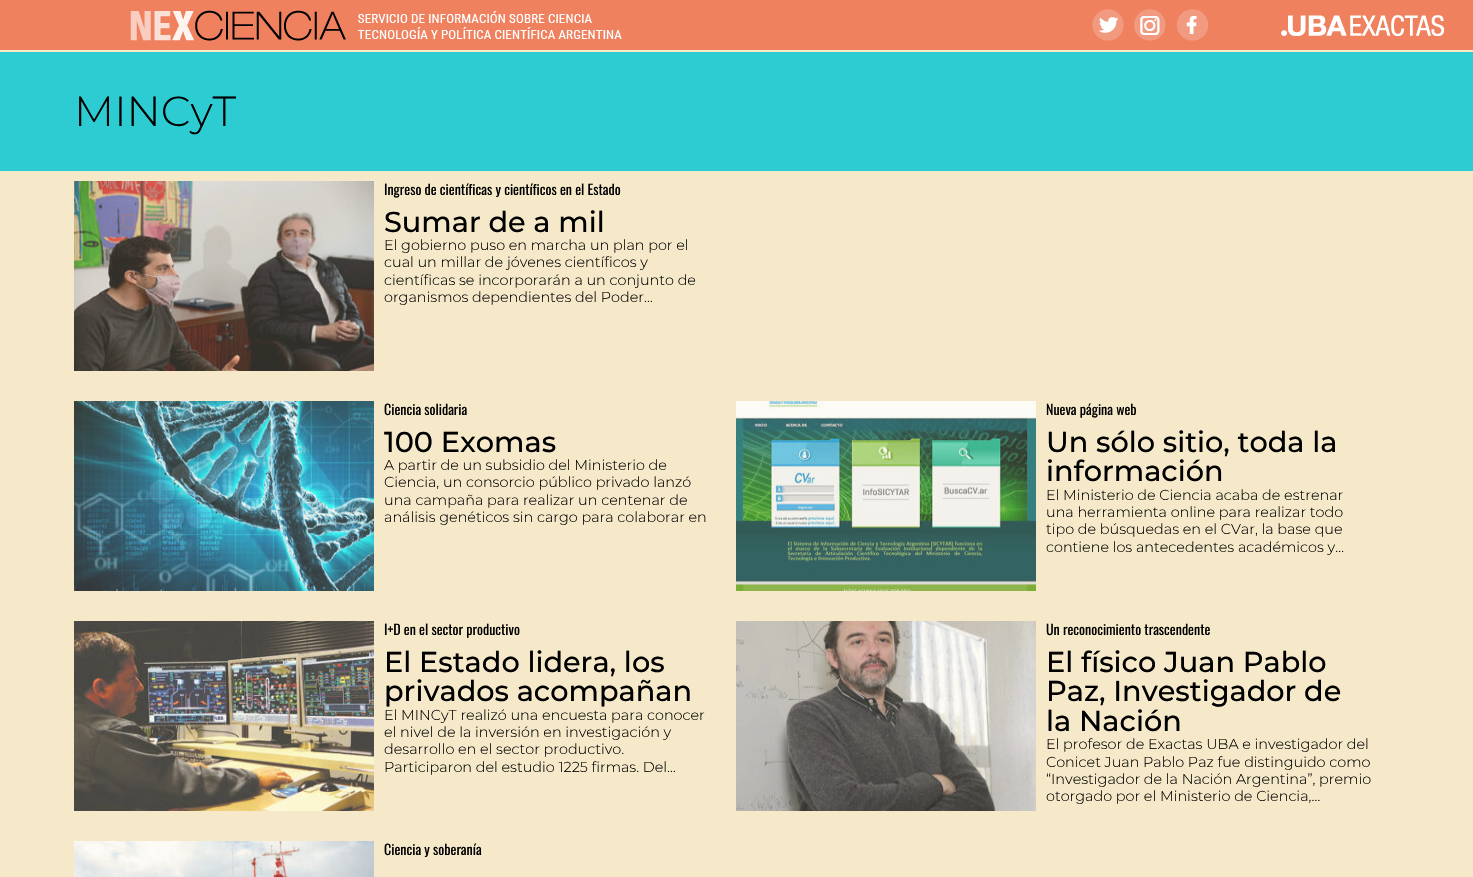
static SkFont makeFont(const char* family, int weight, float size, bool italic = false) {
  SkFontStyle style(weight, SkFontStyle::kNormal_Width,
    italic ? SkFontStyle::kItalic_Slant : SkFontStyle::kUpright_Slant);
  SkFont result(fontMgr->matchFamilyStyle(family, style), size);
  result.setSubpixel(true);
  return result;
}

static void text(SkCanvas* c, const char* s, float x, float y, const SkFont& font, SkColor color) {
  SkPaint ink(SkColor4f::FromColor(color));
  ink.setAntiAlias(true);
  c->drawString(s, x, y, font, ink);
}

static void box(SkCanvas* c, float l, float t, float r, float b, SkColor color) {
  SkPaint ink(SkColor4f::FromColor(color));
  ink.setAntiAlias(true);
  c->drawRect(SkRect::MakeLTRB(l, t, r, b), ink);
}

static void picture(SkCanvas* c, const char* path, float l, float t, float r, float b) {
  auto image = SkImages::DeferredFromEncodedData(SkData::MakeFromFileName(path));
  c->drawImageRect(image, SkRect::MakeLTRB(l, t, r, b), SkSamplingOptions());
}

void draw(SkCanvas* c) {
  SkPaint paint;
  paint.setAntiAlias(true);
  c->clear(0xfff5e9c9);
  box(c, 0, 0, 1473, 50, 0xffef815f);
  picture(c, "img_01.png", 130, 10, 622, 41);
  picture(c, "img_02.png", 1092, 9, 1124, 41);
  picture(c, "img_03.png", 1134, 9, 1166, 41);
  picture(c, "img_04.png", 1176, 9, 1208, 41);
  picture(c, "img_05.png", 1281, 15, 1444, 36);
  box(c, 0, 52, 1473, 171, 0xff2dccd2);
  SkFont face1 = makeFont("Montserrat", 300, 42);
  text(c, "MINCyT", 74, 126, face1, 0xff000000);
  picture(c, "img_06.png", 74, 181, 374, 371);
  SkFont face2 = makeFont("Oswald", 400, 14);
  text(c, "Ingreso de científicas y científicos en el Estado", 384, 195, face2, 0xff000000);
  SkFont face3 = makeFont("Montserrat", 500, 28.75f);
  text(c, "Sumar de a mil", 384, 232, face3, 0xff000000);
  SkFont face4 = makeFont("Montserrat", 300, 14.4f);
  text(c, "El gobierno puso en marcha un plan por el", 384, 250, face4, 0xff000000);
  text(c, "cual un millar de jóvenes científicos y", 384, 267, face4, 0xff000000);
  text(c, "científicas se incorporarán a un conjunto de", 384, 285, face4, 0xff000000);
  text(c, "organismos dependientes del Poder…", 384, 302, face4, 0xff000000);
  picture(c, "img_07.png", 74, 401, 374, 591);
  text(c, "Ciencia solidaria", 384, 415, face2, 0xff000000);
  text(c, "100 Exomas", 384, 452, face3, 0xff000000);
  text(c, "A partir de un subsidio del Ministerio de", 384, 470, face4, 0xff000000);
  text(c, "Ciencia, un consorcio público privado lanzó", 384, 487, face4, 0xff000000);
  text(c, "una campaña para realizar un centenar de", 384, 505, face4, 0xff000000);
  text(c, "análisis genéticos sin cargo para colaborar en", 384, 522, face4, 0xff000000);
  picture(c, "img_08.png", 736, 401, 1036, 591);
  text(c, "Nueva página web", 1046, 415, face2, 0xff000000);
  text(c, "Un sólo sitio, toda la", 1046, 452, face3, 0xff000000);
  text(c, "información", 1046, 481, face3, 0xff000000);
  text(c, "El Ministerio de Ciencia acaba de estrenar", 1046, 500, face4, 0xff000000);
  text(c, "una herramienta online para realizar todo", 1046, 517, face4, 0xff000000);
  text(c, "tipo de búsquedas en el CVar, la base que", 1046, 534, face4, 0xff000000);
  text(c, "contiene los antecedentes académicos y…", 1046, 552, face4, 0xff000000);
  picture(c, "img_09.png", 74, 621, 374, 811);
  text(c, "I+D en el sector productivo", 384, 635, face2, 0xff000000);
  text(c, "El Estado lidera, los", 384, 672, face3, 0xff000000);
  text(c, "privados acompañan", 384, 701, face3, 0xff000000);
  text(c, "El MINCyT realizó una encuesta para conocer", 384, 720, face4, 0xff000000);
  text(c, "el nivel de la inversión en investigación y", 384, 737, face4, 0xff000000);
  text(c, "desarrollo en el sector productivo.", 384, 754, face4, 0xff000000);
  text(c, "Participaron del estudio 1225 firmas. Del…", 384, 772, face4, 0xff000000);
  picture(c, "img_10.png", 736, 621, 1036, 811);
  text(c, "Un reconocimiento trascendente", 1046, 635, face2, 0xff000000);
  text(c, "El físico Juan Pablo", 1046, 672, face3, 0xff000000);
  text(c, "Paz, Investigador de", 1046, 701, face3, 0xff000000);
  text(c, "la Nación", 1046, 731, face3, 0xff000000);
  text(c, "El profesor de Exactas UBA e investigador del", 1046, 749, face4, 0xff000000);
  text(c, "Conicet Juan Pablo Paz fue distinguido como", 1046, 767, face4, 0xff000000);
  text(c, "“Investigador de la Nación Argentina”, premio", 1046, 784, face4, 0xff000000);
  text(c, "otorgado por el Ministerio de Ciencia,…", 1046, 801, face4, 0xff000000);
  picture(c, "img_11.png", 74, 841, 374, 877);
  text(c, "Ciencia y soberanía", 384, 855, face2, 0xff000000);
}
